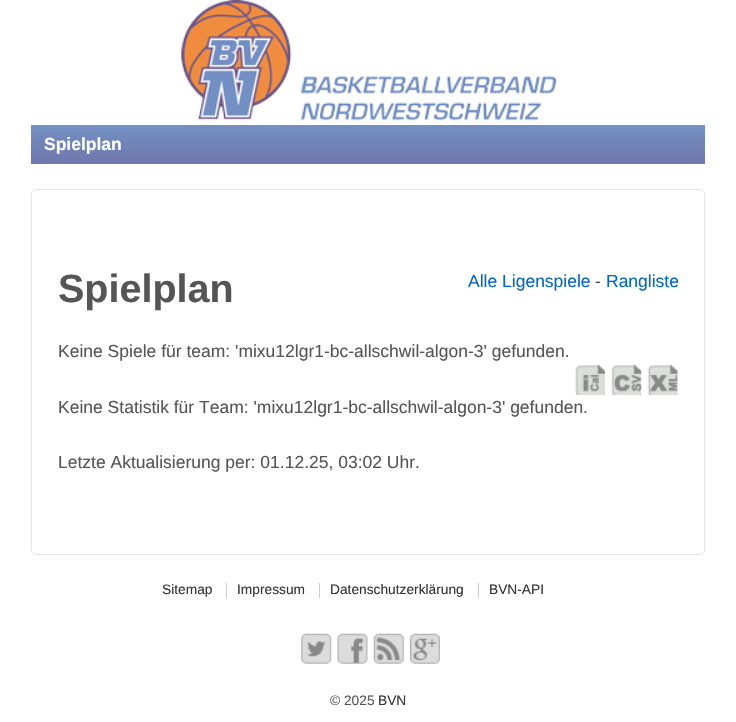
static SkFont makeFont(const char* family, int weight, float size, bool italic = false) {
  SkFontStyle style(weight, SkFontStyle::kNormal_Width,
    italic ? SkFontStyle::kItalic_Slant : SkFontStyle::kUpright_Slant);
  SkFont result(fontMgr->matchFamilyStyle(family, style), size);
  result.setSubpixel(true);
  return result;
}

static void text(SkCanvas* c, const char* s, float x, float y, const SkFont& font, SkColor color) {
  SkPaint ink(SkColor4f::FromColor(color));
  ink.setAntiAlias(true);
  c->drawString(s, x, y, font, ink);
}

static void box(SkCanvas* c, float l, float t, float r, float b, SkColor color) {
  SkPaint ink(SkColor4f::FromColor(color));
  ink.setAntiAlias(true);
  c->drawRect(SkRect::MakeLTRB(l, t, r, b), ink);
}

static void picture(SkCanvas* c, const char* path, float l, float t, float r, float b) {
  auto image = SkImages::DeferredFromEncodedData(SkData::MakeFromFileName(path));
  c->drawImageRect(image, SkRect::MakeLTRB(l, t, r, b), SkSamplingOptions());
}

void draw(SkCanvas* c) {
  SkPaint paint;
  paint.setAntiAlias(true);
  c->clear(0xffffffff);
  picture(c, "img_01.png", 181, 0, 557, 121);
  {
    const SkColor colors[] = {0xff7390c4, 0xff7077ab};
    const float stops[] = {0, 1};
    const SkPoint ends[] = {{368, 125}, {368, 164}};
    paint.setShader(SkGradientShader::MakeLinear(ends, colors, stops, 2, SkTileMode::kClamp));
    paint.setAlpha(255);
  }
  c->drawRect(SkRect::MakeLTRB(31, 125, 705, 164), paint);
  SkFont face1 = makeFont("Liberation Sans", 700, 17.5f);
  text(c, "Spielplan", 44, 150, face1, 0xffffffff);
  paint.setStyle(SkPaint::kStroke_Style);
  paint.setStrokeWidth(1);
  paint.setShader(nullptr);
  paint.setColor(0xffe5e5e5);
  c->drawRoundRect(SkRect::MakeLTRB(31.5f, 189.5f, 704.5f, 554.5f), 4.5f, 4.5f, paint);
  SkFont face2 = makeFont("Liberation Sans", 700, 39.5f);
  text(c, "Spielplan", 58, 302, face2, 0xff555555);
  SkFont face3 = makeFont("Liberation Sans", 400, 17.5f);
  text(c, "Alle Ligenspiele", 468, 287, face3, 0xff0066cc);
  text(c, "-", 595, 287, face3, 0xff555555);
  text(c, "Rangliste", 606, 287, face3, 0xff0066cc);
  text(c, "Keine Spiele für team: 'mixu12lgr1-bc-allschwil-algon-3' gefunden.", 58, 357, face3, 0xff555555);
  picture(c, "img_02.png", 575, 365, 605, 395);
  picture(c, "img_03.png", 611, 365, 642, 395);
  picture(c, "img_04.png", 647, 365, 678, 395);
  text(c, "Keine Statistik für Team: 'mixu12lgr1-bc-allschwil-algon-3' gefunden.", 58, 413, face3, 0xff555555);
  text(c, "Letzte Aktualisierung per: 01.12.25, 03:02 Uhr.", 58, 468, face3, 0xff555555);
  SkFont face4 = makeFont("Liberation Sans", 400, 13.75f);
  text(c, "Sitemap", 162, 594, face4, 0xff333333);
  text(c, "Impressum", 237, 594, face4, 0xff333333);
  box(c, 226, 583, 227, 598, 0xffcccccc);
  text(c, "Datenschutzerklärung", 330, 594, face4, 0xff333333);
  box(c, 319, 583, 320, 598, 0xffcccccc);
  text(c, "BVN-API", 489, 594, face4, 0xff333333);
  box(c, 478, 583, 479, 598, 0xffcccccc);
  picture(c, "img_05.png", 301, 633, 332, 664);
  picture(c, "img_06.png", 337, 633, 368, 664);
  picture(c, "img_07.png", 373, 633, 404, 664);
  picture(c, "img_08.png", 410, 633, 440, 664);
  text(c, "© 2025", 330, 705, face4, 0xff555555);
  text(c, "BVN", 378, 705, face4, 0xff333333);
}
